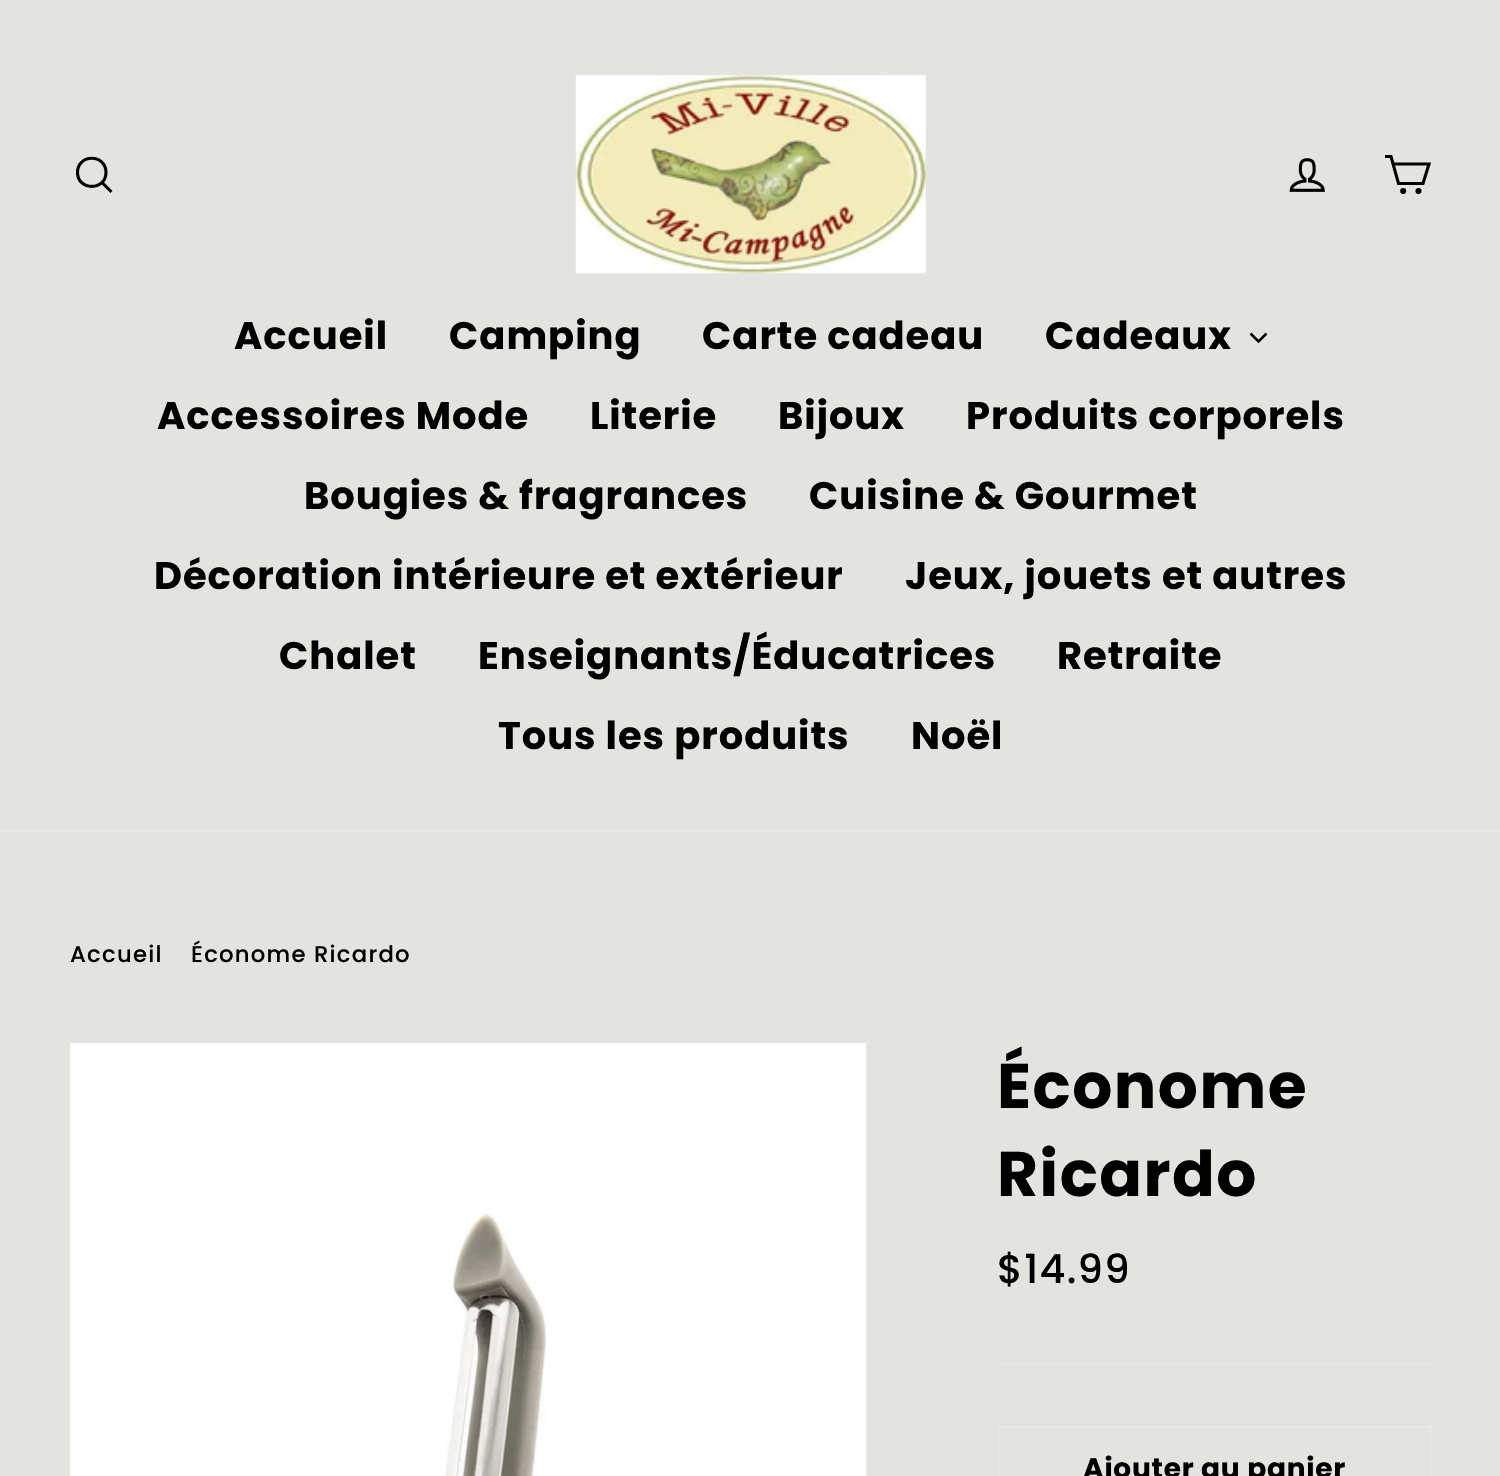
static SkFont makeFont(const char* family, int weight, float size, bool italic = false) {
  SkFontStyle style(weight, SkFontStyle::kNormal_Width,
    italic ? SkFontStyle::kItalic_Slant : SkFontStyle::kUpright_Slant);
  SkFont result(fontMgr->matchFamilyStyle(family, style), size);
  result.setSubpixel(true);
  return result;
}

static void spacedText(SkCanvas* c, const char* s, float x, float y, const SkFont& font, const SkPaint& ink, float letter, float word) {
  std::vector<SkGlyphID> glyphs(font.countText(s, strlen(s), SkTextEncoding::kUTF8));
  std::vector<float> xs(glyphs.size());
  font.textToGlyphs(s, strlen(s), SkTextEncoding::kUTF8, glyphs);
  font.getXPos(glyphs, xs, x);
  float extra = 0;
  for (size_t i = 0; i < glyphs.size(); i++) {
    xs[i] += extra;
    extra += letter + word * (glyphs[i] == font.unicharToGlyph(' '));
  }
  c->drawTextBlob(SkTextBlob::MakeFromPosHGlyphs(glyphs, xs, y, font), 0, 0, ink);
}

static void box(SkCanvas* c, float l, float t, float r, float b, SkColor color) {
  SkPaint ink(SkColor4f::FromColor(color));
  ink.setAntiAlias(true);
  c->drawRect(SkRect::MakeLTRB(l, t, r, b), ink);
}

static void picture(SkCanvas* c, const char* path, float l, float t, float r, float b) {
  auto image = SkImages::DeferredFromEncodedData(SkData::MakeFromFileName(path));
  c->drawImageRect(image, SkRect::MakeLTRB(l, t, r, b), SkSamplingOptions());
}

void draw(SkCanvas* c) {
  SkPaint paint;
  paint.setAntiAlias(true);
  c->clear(0xffe3e3e0);
  box(c, 0, 830, 1500, 832, 0xffe8e8e1);
  paint.setStyle(SkPaint::kStroke_Style);
  paint.setStrokeWidth(3.1f);
  paint.setColor(0xff000000);
  c->drawPath(SkPathBuilder().moveTo(106, 172.5f).cubicTo(106, 191, 77.5f, 191, 77.5f, 172.5f).cubicTo(77.5f, 153.5f, 106, 153.5f, 106, 172.5f).close().moveTo(111.5f, 192).lineTo(102, 182.5f).detach(), paint);
  picture(c, "img_01.png", 575, 75, 926, 274);
  picture(c, "img_02.png", 1289, 158, 1325, 192);
  c->drawPath(SkPathBuilder().moveTo(1393, 164).lineTo(1429, 164).lineTo(1423, 183.5f).lineTo(1398.5f, 183.5f).lineTo(1391, 156.5f).lineTo(1385, 156.5f).detach(), paint);
  c->drawCircle(1403.2f, 191.1f, 1.5f, paint);
  c->drawCircle(1418.5f, 191.1f, 1.5f, paint);
  SkFont face1 = makeFont("Poppins", 700, 38.5f);
  paint.setStyle(SkPaint::kFill_Style);
  spacedText(c, "Accueil", 234, 349, face1, paint, 0.95f, 0);
  spacedText(c, "Camping", 449, 349, face1, paint, 0.95f, 0);
  spacedText(c, "Carte cadeau", 702, 349, face1, paint, 0.95f, 0);
  spacedText(c, "Cadeaux", 1045, 349, face1, paint, 0.95f, 0);
  paint.setStyle(SkPaint::kStroke_Style);
  paint.setStrokeWidth(2.5f);
  c->drawPath(SkPathBuilder().moveTo(1250.5f, 333.5f).lineTo(1258.5f, 341.5f).lineTo(1266.5f, 333.5f).detach(), paint);
  paint.setStyle(SkPaint::kFill_Style);
  spacedText(c, "Accessoires Mode", 157, 429, face1, paint, 0.95f, 0);
  spacedText(c, "Literie", 590, 429, face1, paint, 0.95f, 0);
  spacedText(c, "Bijoux", 778, 429, face1, paint, 0.95f, 0);
  spacedText(c, "Produits corporels", 966, 429, face1, paint, 0.95f, 0);
  spacedText(c, "Bougies & fragrances", 304, 509, face1, paint, 0.95f, 0);
  spacedText(c, "Cuisine & Gourmet", 809, 509, face1, paint, 0.95f, 0);
  spacedText(c, "Décoration intérieure et extérieur", 154, 589, face1, paint, 0.95f, 0);
  spacedText(c, "Jeux, jouets et autres", 905, 589, face1, paint, 0.95f, 0);
  spacedText(c, "Chalet", 279, 669, face1, paint, 0.95f, 0);
  spacedText(c, "Enseignants/Éducatrices", 478, 669, face1, paint, 0.95f, 0);
  spacedText(c, "Retraite", 1057, 669, face1, paint, 0.95f, 0);
  spacedText(c, "Tous les produits", 498, 749, face1, paint, 0.95f, 0);
  spacedText(c, "Noël", 911, 749, face1, paint, 0.95f, 0);
  SkFont face2 = makeFont("Poppins", 500, 22.75f);
  spacedText(c, "Accueil", 70, 962, face2, paint, 1.25f, 0);
  spacedText(c, "Économe Ricardo", 191, 962, face2, paint, 1.25f, 0);
  picture(c, "img_03.png", 70, 1043, 867, 1476);
  SkFont face3 = makeFont("Poppins", 700, 63);
  spacedText(c, "Économe", 997, 1108, face3, paint, 1.5f, 0);
  spacedText(c, "Ricardo", 997, 1196, face3, paint, 1.5f, 0);
  SkFont face4 = makeFont("Poppins", 500, 40);
  spacedText(c, "$14.99", 997, 1283, face4, paint, 1.25f, 0);
  box(c, 998, 1363, 1432, 1365, 0xffe8e8e1);
  paint.setStyle(SkPaint::kStroke_Style);
  paint.setStrokeWidth(2);
  paint.setColor(0xffe8e8e1);
  c->drawRect(SkRect::MakeLTRB(999, 1427, 1431, 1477), paint);
  SkFont face5 = makeFont("Poppins", 700, 28);
  paint.setStyle(SkPaint::kFill_Style);
  paint.setColor(0xff000000);
  spacedText(c, "Ajouter au panier", 1083, 1478, face5, paint, 0.75f, 0);
}
